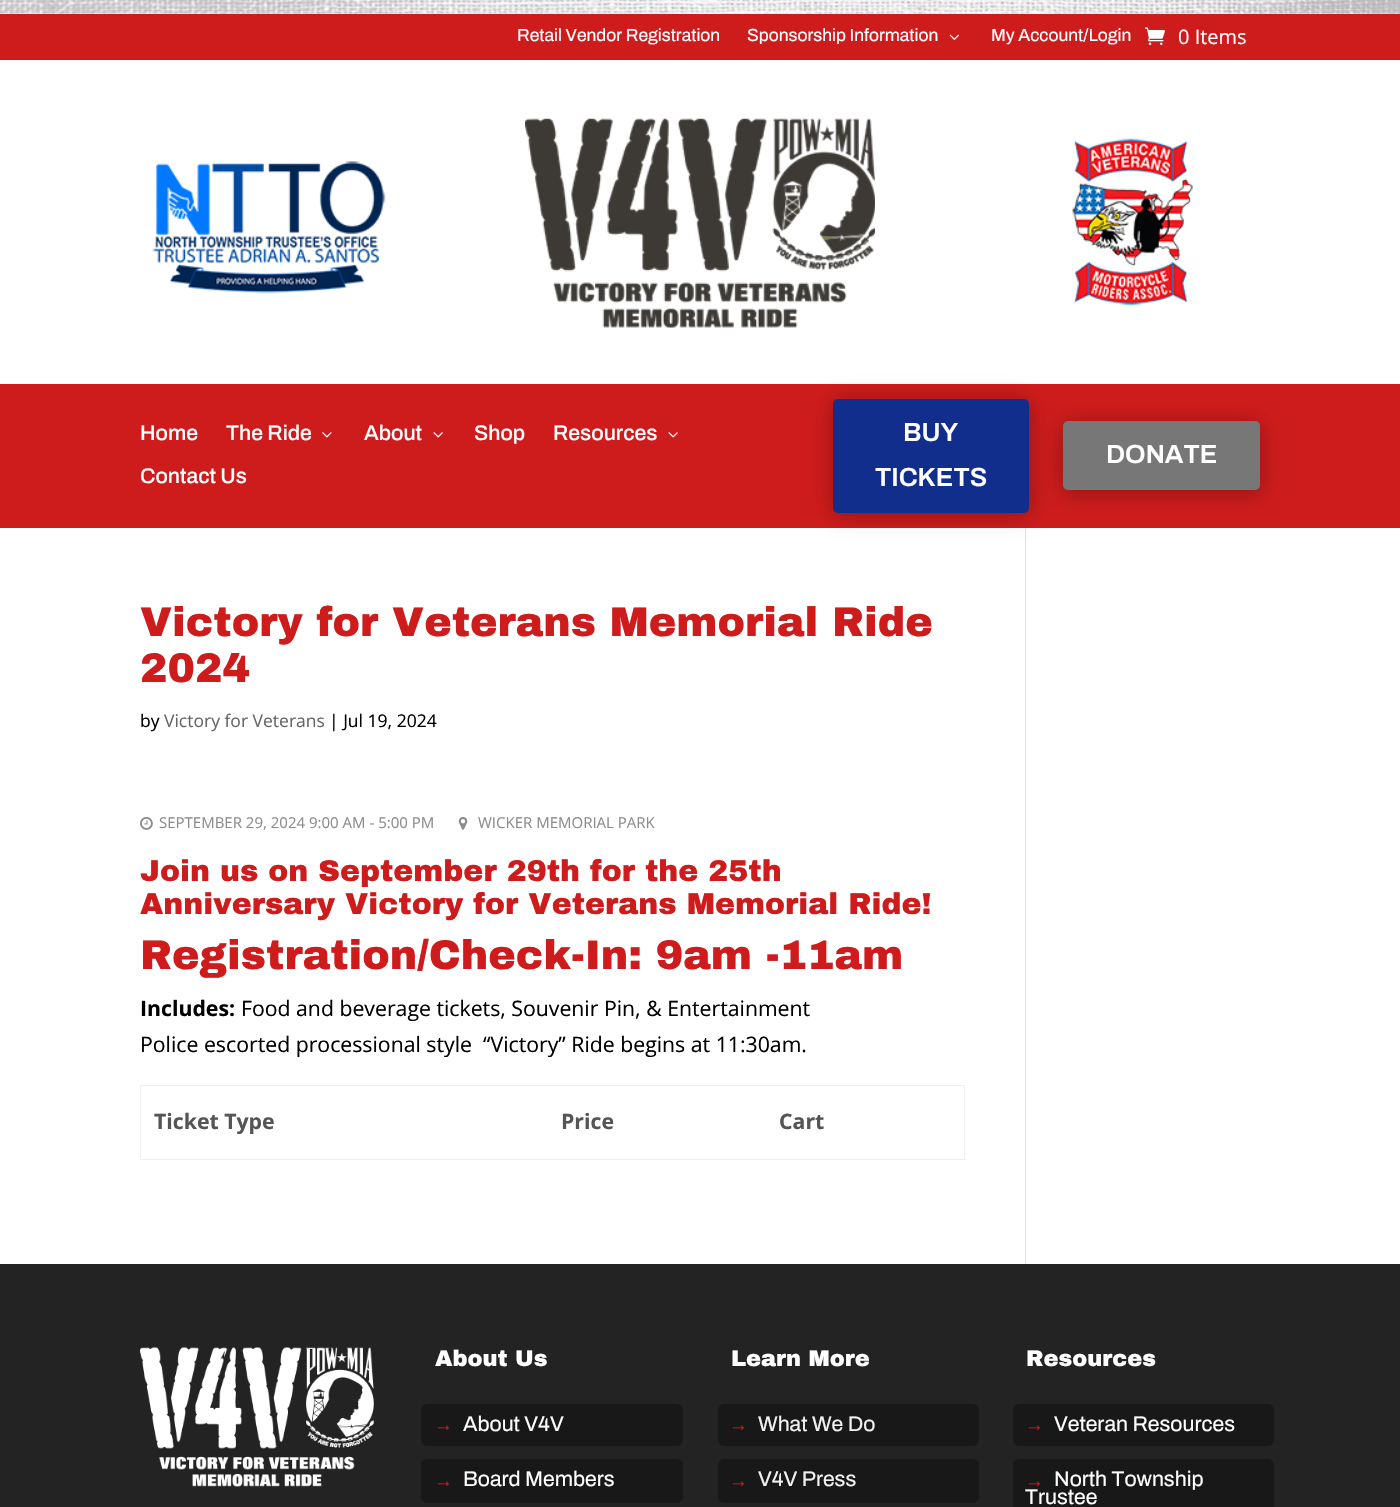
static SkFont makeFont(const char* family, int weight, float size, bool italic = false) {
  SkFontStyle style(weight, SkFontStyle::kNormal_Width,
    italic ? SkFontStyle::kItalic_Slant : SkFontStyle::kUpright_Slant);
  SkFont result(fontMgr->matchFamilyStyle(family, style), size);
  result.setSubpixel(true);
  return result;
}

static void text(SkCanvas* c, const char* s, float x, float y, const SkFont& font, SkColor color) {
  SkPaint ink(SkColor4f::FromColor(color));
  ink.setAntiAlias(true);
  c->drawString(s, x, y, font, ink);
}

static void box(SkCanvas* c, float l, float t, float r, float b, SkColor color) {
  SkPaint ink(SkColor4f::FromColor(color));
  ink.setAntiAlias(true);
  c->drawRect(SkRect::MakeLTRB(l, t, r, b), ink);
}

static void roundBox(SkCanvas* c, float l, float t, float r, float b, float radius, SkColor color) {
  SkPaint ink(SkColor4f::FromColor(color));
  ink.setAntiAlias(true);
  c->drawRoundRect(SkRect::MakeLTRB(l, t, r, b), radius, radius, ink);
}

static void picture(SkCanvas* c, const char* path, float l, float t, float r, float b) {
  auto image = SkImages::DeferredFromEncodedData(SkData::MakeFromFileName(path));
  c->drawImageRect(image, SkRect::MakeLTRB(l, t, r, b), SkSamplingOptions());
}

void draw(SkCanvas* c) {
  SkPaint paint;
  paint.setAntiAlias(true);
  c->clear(0xffffffff);
  picture(c, "img_01.png", 0, 0, 1400, 14);
  box(c, 0, 14, 1400, 60, 0xffce1c1c);
  SkFont face1 = makeFont("Archivo", 400, 17.5f);
  text(c, "Retail Vendor Registration", 517, 41, face1, 0xffffffff);
  text(c, "Sponsorship Information", 747, 41, face1, 0xffffffff);
  picture(c, "img_02.png", 949, 34, 959, 40);
  text(c, "My Account/Login", 991, 41, face1, 0xffffffff);
  picture(c, "img_03.png", 1145, 27, 1165, 45);
  SkFont face2 = makeFont("Open Sans", 400, 20);
  text(c, "0 Items", 1178, 44, face2, 0xffffffff);
  picture(c, "img_04.png", 152, 161, 386, 294);
  picture(c, "img_05.png", 525, 118, 875, 328);
  picture(c, "img_06.png", 1072, 138, 1193, 306);
  box(c, 0, 384, 1400, 528, 0xffce1c1c);
  SkFont face3 = makeFont("Archivo", 500, 21.25f);
  text(c, "Home", 140, 440, face3, 0xffffffff);
  text(c, "The Ride", 226, 440, face3, 0xffffffff);
  picture(c, "img_07.png", 322, 432, 332, 438);
  text(c, "About", 364, 440, face3, 0xffffffff);
  picture(c, "img_08.png", 433, 432, 443, 438);
  text(c, "Shop", 474, 440, face3, 0xffffffff);
  text(c, "Resources", 553, 440, face3, 0xffffffff);
  picture(c, "img_08.png", 668, 432, 678, 438);
  text(c, "Contact Us", 140, 483, face3, 0xffffffff);
  box(c, 1025, 528, 1026, 1264, 0xffe2e2e2);
  paint.setColor(0x4d000000);
  paint.setMaskFilter(SkMaskFilter::MakeBlur(kNormal_SkBlurStyle, 11));
  c->drawRoundRect(SkRect::MakeLTRB(833, 401, 1029, 515), 5, 5, paint);
  paint.setMaskFilter(nullptr);
  roundBox(c, 833, 399, 1029, 513, 5, 0xff122e8c);
  SkFont face4 = makeFont("Archivo", 600, 26.25f);
  text(c, "BUY", 903, 441, face4, 0xffffffff);
  text(c, "TICKETS", 875, 486, face4, 0xffffffff);
  paint.setMaskFilter(SkMaskFilter::MakeBlur(kNormal_SkBlurStyle, 11));
  c->drawRoundRect(SkRect::MakeLTRB(1063, 424, 1260, 493), 5, 5, paint);
  paint.setMaskFilter(nullptr);
  roundBox(c, 1063, 421, 1260, 490, 5, 0xff777777);
  text(c, "DONATE", 1106, 463, face4, 0xffffffff);
  SkFont face5 = makeFont("Archivo Black", 900, 41.25f);
  text(c, "Victory for Veterans Memorial Ride", 140, 636, face5, 0xffce1c1c);
  text(c, "2024", 140, 682, face5, 0xffce1c1c);
  SkFont face6 = makeFont("Open Sans", 400, 17.5f);
  text(c, "by", 140, 727, face6, 0xff000000);
  text(c, "Victory for Veterans", 164, 727, face6, 0xff666666);
  text(c, "| Jul 19, 2024", 329, 727, face6, 0xff000000);
  picture(c, "img_09.png", 140, 817, 153, 830);
  SkFont face7 = makeFont("Open Sans", 400, 15);
  text(c, "SEPTEMBER 29, 2024 9:00 AM - 5:00 PM", 159, 828, face7, 0xff8c8c8c);
  picture(c, "img_10.png", 458, 817, 468, 830);
  text(c, "WICKER MEMORIAL PARK", 478, 828, face7, 0xff8c8c8c);
  SkFont face8 = makeFont("Archivo Black", 900, 30);
  text(c, "Join us on September 29th for the 25th", 140, 881, face8, 0xffce1c1c);
  text(c, "Anniversary Victory for Veterans Memorial Ride!", 140, 914, face8, 0xffce1c1c);
  text(c, "Registration/Check-In: 9am -11am", 140, 969, face5, 0xffce1c1c);
  SkFont face9 = makeFont("Open Sans", 700, 21.25f);
  text(c, "Includes:", 140, 1016, face9, 0xff000000);
  SkFont face10 = makeFont("Open Sans", 400, 21.25f);
  text(c, "Food and beverage tickets, Souvenir Pin, & Entertainment", 241, 1016, face10, 0xff000000);
  text(c, "Police escorted processional style  “Victory” Ride begins at 11:30am.", 140, 1052, face10, 0xff000000);
  box(c, 140, 1085, 965, 1086, 0xffeeeeee);
  box(c, 964, 1085, 965, 1160, 0xffeeeeee);
  box(c, 140, 1159, 965, 1160, 0xffeeeeee);
  box(c, 140, 1085, 141, 1160, 0xffeeeeee);
  text(c, "Ticket Type", 154, 1129, face9, 0xff555555);
  text(c, "Price", 561, 1129, face9, 0xff555555);
  text(c, "Cart", 779, 1129, face9, 0xff555555);
  box(c, 0, 1264, 1400, 1507, 0xff232323);
  picture(c, "img_11.png", 140, 1347, 374, 1487);
  SkFont face11 = makeFont("Archivo Black", 900, 22.5f);
  text(c, "About Us", 435, 1366, face11, 0xffffffff);
  roundBox(c, 421, 1404, 683, 1446, 6, 0xff181818);
  SkFont face12 = makeFont("Liberation Serif", 400, 19);
  text(c, "→", 434, 1431, face12, 0xffce1c1c);
  SkFont face13 = makeFont("Archivo", 400, 21.25f);
  text(c, "About V4V", 463, 1431, face13, 0xffffffff);
  roundBox(c, 421, 1459, 683, 1503, 6, 0xff181818);
  text(c, "→", 434, 1487, face12, 0xffce1c1c);
  text(c, "Board Members", 463, 1486, face13, 0xffffffff);
  text(c, "Learn More", 731, 1366, face11, 0xffffffff);
  roundBox(c, 718, 1404, 979, 1446, 6, 0xff181818);
  text(c, "→", 729, 1431, face12, 0xffce1c1c);
  text(c, "What We Do", 758, 1431, face13, 0xfff2f2f2);
  roundBox(c, 718, 1459, 979, 1503, 6, 0xff181818);
  text(c, "→", 729, 1487, face12, 0xffce1c1c);
  text(c, "V4V Press", 758, 1486, face13, 0xfff2f2f2);
  text(c, "Resources", 1026, 1366, face11, 0xffffffff);
  roundBox(c, 1013, 1404, 1274, 1446, 6, 0xff181818);
  text(c, "→", 1025, 1431, face12, 0xffce1c1c);
  text(c, "Veteran Resources", 1054, 1431, face13, 0xffffffff);
  roundBox(c, 1013, 1459, 1274, 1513, 6, 0xff181818);
  text(c, "→", 1025, 1487, face12, 0xffce1c1c);
  text(c, "North Township", 1054, 1486, face13, 0xffffffff);
  text(c, "Trustee", 1025, 1504, face13, 0xffffffff);
}
